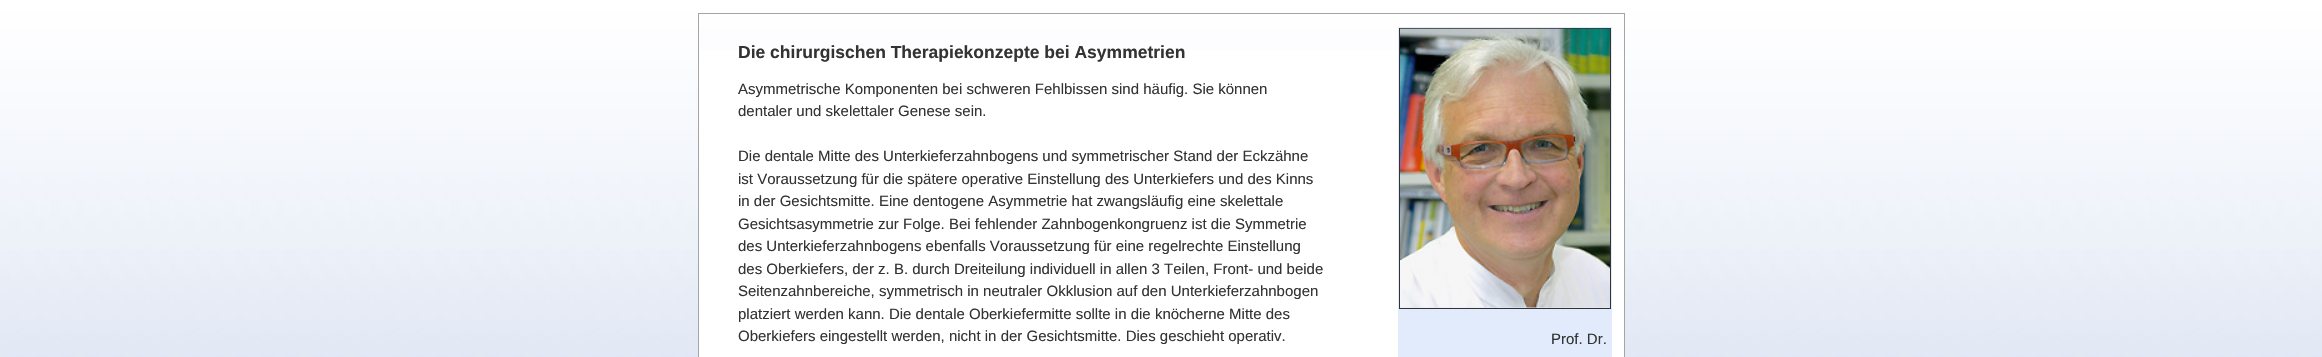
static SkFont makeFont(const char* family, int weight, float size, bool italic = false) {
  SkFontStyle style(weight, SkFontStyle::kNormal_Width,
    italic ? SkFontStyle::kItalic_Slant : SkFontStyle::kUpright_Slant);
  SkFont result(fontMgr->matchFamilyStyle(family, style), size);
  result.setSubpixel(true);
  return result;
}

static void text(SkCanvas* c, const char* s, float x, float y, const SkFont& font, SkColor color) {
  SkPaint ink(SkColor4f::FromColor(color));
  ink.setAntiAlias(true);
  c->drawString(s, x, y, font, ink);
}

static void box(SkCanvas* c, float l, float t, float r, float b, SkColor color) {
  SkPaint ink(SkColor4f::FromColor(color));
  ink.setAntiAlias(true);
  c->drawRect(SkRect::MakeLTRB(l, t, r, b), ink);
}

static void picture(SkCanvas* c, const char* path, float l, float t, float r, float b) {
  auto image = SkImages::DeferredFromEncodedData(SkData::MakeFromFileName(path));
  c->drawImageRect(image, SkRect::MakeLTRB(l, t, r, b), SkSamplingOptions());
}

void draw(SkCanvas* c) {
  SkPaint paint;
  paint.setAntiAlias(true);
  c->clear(0xffffffff);
  picture(c, "img_01.png", 0, 0, 2322, 357);
  box(c, 699, 50, 1624, 357, 0xffffffff);
  paint.setStyle(SkPaint::kStroke_Style);
  paint.setStrokeWidth(1);
  paint.setColor(0xffa5a5a5);
  c->drawRect(SkRect::MakeLTRB(698.5f, 13.5f, 1624.5f, 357.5f), paint);
  box(c, 1398, 27, 1612, 357, 0xffe1ebfb);
  SkFont face1 = makeFont("Liberation Sans", 700, 17.5f);
  text(c, "Die chirurgischen Therapiekonzepte bei Asymmetrien", 738, 58, face1, 0xff333333);
  SkFont face2 = makeFont("Liberation Sans", 400, 15);
  text(c, "Asymmetrische Komponenten bei schweren Fehlbissen sind häufig. Sie können", 738, 94, face2, 0xff333333);
  text(c, "dentaler und skelettaler Genese sein.", 738, 116, face2, 0xff333333);
  text(c, "Die dentale Mitte des Unterkieferzahnbogens und symmetrischer Stand der Eckzähne", 738, 161, face2, 0xff333333);
  text(c, "ist Voraussetzung für die spätere operative Einstellung des Unterkiefers und des Kinns", 738, 184, face2, 0xff333333);
  text(c, "in der Gesichtsmitte. Eine dentogene Asymmetrie hat zwangsläufig eine skelettale", 738, 206, face2, 0xff333333);
  text(c, "Gesichtsasymmetrie zur Folge. Bei fehlender Zahnbogenkongruenz ist die Symmetrie", 738, 229, face2, 0xff333333);
  text(c, "des Unterkieferzahnbogens ebenfalls Voraussetzung für eine regelrechte Einstellung", 738, 251, face2, 0xff333333);
  text(c, "des Oberkiefers, der z. B. durch Dreiteilung individuell in allen 3 Teilen, Front- und beide", 738, 274, face2, 0xff333333);
  text(c, "Seitenzahnbereiche, symmetrisch in neutraler Okklusion auf den Unterkieferzahnbogen", 738, 296, face2, 0xff333333);
  text(c, "platziert werden kann. Die dentale Oberkiefermitte sollte in die knöcherne Mitte des", 738, 319, face2, 0xff333333);
  text(c, "Oberkiefers eingestellt werden, nicht in der Gesichtsmitte. Dies geschieht operativ.", 738, 341, face2, 0xff333333);
  paint.setColor(0xff333333);
  c->drawRect(SkRect::MakeLTRB(1399.5f, 28.5f, 1610.5f, 308.5f), paint);
  picture(c, "img_02.png", 1400, 28, 1610, 308);
  text(c, "Prof. Dr.", 1551, 344, face2, 0xff333333);
}
